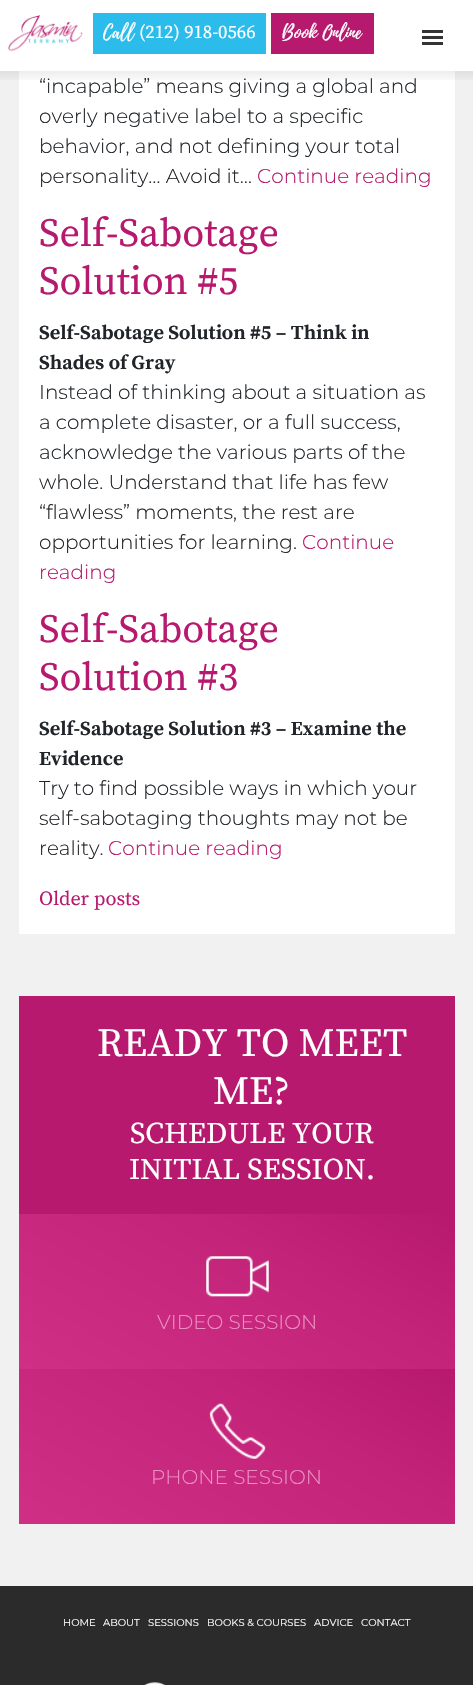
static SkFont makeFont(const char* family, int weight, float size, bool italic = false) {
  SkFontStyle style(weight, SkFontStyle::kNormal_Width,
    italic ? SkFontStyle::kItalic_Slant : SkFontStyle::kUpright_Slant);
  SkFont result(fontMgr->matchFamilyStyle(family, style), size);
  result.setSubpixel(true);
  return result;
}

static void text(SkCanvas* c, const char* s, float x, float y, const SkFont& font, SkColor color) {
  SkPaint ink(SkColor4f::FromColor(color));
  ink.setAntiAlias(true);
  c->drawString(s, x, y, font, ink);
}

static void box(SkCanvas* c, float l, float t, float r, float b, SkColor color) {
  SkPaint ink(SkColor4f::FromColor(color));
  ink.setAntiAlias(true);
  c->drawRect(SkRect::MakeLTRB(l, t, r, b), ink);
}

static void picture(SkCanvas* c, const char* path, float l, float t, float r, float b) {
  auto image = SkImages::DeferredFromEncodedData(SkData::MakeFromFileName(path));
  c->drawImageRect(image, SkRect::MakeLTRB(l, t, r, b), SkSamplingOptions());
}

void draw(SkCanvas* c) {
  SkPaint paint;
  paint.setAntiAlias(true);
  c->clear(0xfff1f1f1);
  box(c, 0, 0, 473, 71, 0xffffffff);
  picture(c, "img_01.png", 8, 15, 83, 52);
  box(c, 93, 13, 266, 54, 0xff2bbceb);
  SkFont face1 = makeFont("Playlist", 400, 18.75f);
  text(c, "Call", 103, 38, face1, 0xffffffff);
  SkFont face2 = makeFont("Source Serif Pro", 400, 18.75f);
  text(c, "(212) 918-0566", 139, 38, face2, 0xffffffff);
  box(c, 271, 13, 374, 54, 0xffb7196e);
  text(c, "Book Online", 282, 38, face1, 0xffffffff);
  picture(c, "img_02.png", 422, 30, 443, 45);
  box(c, 19, 71, 455, 934, 0xffffffff);
  {
    const SkColor colors[] = {0x12000000, 0x00000000};
    const float stops[] = {0, 1};
    const SkPoint ends[] = {{237, 71}, {237, 84}};
    paint.setShader(SkGradientShader::MakeLinear(ends, colors, stops, 2, SkTileMode::kClamp));
    paint.setAlpha(255);
  }
  c->drawRect(SkRect::MakeLTRB(0, 71, 473, 80), paint);
  SkFont face3 = makeFont("Montserrat", 300, 20);
  text(c, "“incapable” means giving a global and", 39, 93, face3, 0xff212529);
  text(c, "overly negative label to a specific", 39, 123, face3, 0xff212529);
  text(c, "behavior, and not defining your total", 39, 153, face3, 0xff212529);
  text(c, "personality… Avoid it…", 39, 183, face3, 0xff212529);
  text(c, "Continue reading", 257, 183, face3, 0xffb7196e);
  SkFont face4 = makeFont("Source Serif Pro", 400, 40);
  text(c, "Self-Sabotage", 39, 246, face4, 0xffb7196e);
  text(c, "Solution #5", 39, 294, face4, 0xffb7196e);
  SkFont face5 = makeFont("Source Serif Pro", 700, 20);
  text(c, "Self-Sabotage Solution #5 – Think in", 39, 339, face5, 0xff212529);
  text(c, "Shades of Gray", 39, 369, face5, 0xff212529);
  text(c, "Instead of thinking about a situation as", 39, 399, face3, 0xff212529);
  text(c, "a complete disaster, or a full success,", 39, 429, face3, 0xff212529);
  text(c, "acknowledge the various parts of the", 39, 459, face3, 0xff212529);
  text(c, "whole. Understand that life has few", 39, 489, face3, 0xff212529);
  text(c, "“flawless” moments, the rest are", 39, 519, face3, 0xff212529);
  text(c, "opportunities for learning.", 39, 549, face3, 0xff212529);
  text(c, "Continue", 302, 549, face3, 0xffb7196e);
  text(c, "reading", 39, 579, face3, 0xffb7196e);
  text(c, "Self-Sabotage", 39, 642, face4, 0xffb7196e);
  text(c, "Solution #3", 39, 690, face4, 0xffb7196e);
  text(c, "Self-Sabotage Solution #3 – Examine the", 39, 735, face5, 0xff212529);
  text(c, "Evidence", 39, 765, face5, 0xff212529);
  text(c, "Try to find possible ways in which your", 39, 795, face3, 0xff212529);
  text(c, "self-sabotaging thoughts may not be", 39, 825, face3, 0xff212529);
  text(c, "reality.", 39, 855, face3, 0xff212529);
  text(c, "Continue reading", 108, 855, face3, 0xffb7196e);
  SkFont face6 = makeFont("Source Serif Pro", 400, 20);
  text(c, "Older posts", 39, 905, face6, 0xffb7196e);
  box(c, 19, 996, 455, 1214, 0xffb7196e);
  text(c, "READY TO MEET", 97, 1056, face4, 0xffffffff);
  text(c, "ME?", 213, 1104, face4, 0xffffffff);
  SkFont face7 = makeFont("Source Serif Pro", 400, 30);
  text(c, "SCHEDULE YOUR", 130, 1143, face7, 0xffffffff);
  text(c, "INITIAL SESSION.", 129, 1179, face7, 0xffffffff);
  {
    const SkColor colors[] = {0xffb7196e, 0xffc3247a, 0xffcf3086};
    const float stops[] = {0, 0.35f, 1};
    const SkPoint ends[] = {{325, 1139}, {149, 1444}};
    paint.setShader(SkGradientShader::MakeLinear(ends, colors, stops, 3, SkTileMode::kClamp));
    paint.setAlpha(255);
  }
  c->drawRect(SkRect::MakeLTRB(19, 1214, 455, 1369), paint);
  picture(c, "img_03.png", 206, 1256, 269, 1297);
  text(c, "VIDEO SESSION", 157, 1329, face3, 0xffec90c1);
  {
    const SkColor colors[] = {0xffb7196e, 0xffc3247a, 0xffcf3086};
    const float stops[] = {0, 0.35f, 1};
    const SkPoint ends[] = {{325, 1294}, {149, 1599}};
    paint.setShader(SkGradientShader::MakeLinear(ends, colors, stops, 3, SkTileMode::kClamp));
    paint.setAlpha(255);
  }
  c->drawRect(SkRect::MakeLTRB(19, 1369, 455, 1524), paint);
  picture(c, "img_04.png", 209, 1403, 266, 1459);
  text(c, "PHONE SESSION", 151, 1484, face3, 0xffec90c1);
  box(c, 0, 1586, 473, 1685, 0xff2b2b2b);
  SkFont face8 = makeFont("Montserrat", 400, 10);
  text(c, "HOME", 63, 1626, face8, 0xffffffff);
  text(c, "ABOUT", 103, 1626, face8, 0xffffffff);
  text(c, "SESSIONS", 148, 1626, face8, 0xffffffff);
  text(c, "BOOKS & COURSES", 207, 1626, face8, 0xffffffff);
  text(c, "ADVICE", 314, 1626, face8, 0xffffffff);
  text(c, "CONTACT", 361, 1626, face8, 0xffffffff);
  picture(c, "img_05.png", 144, 1682, 166, 1685);
}
